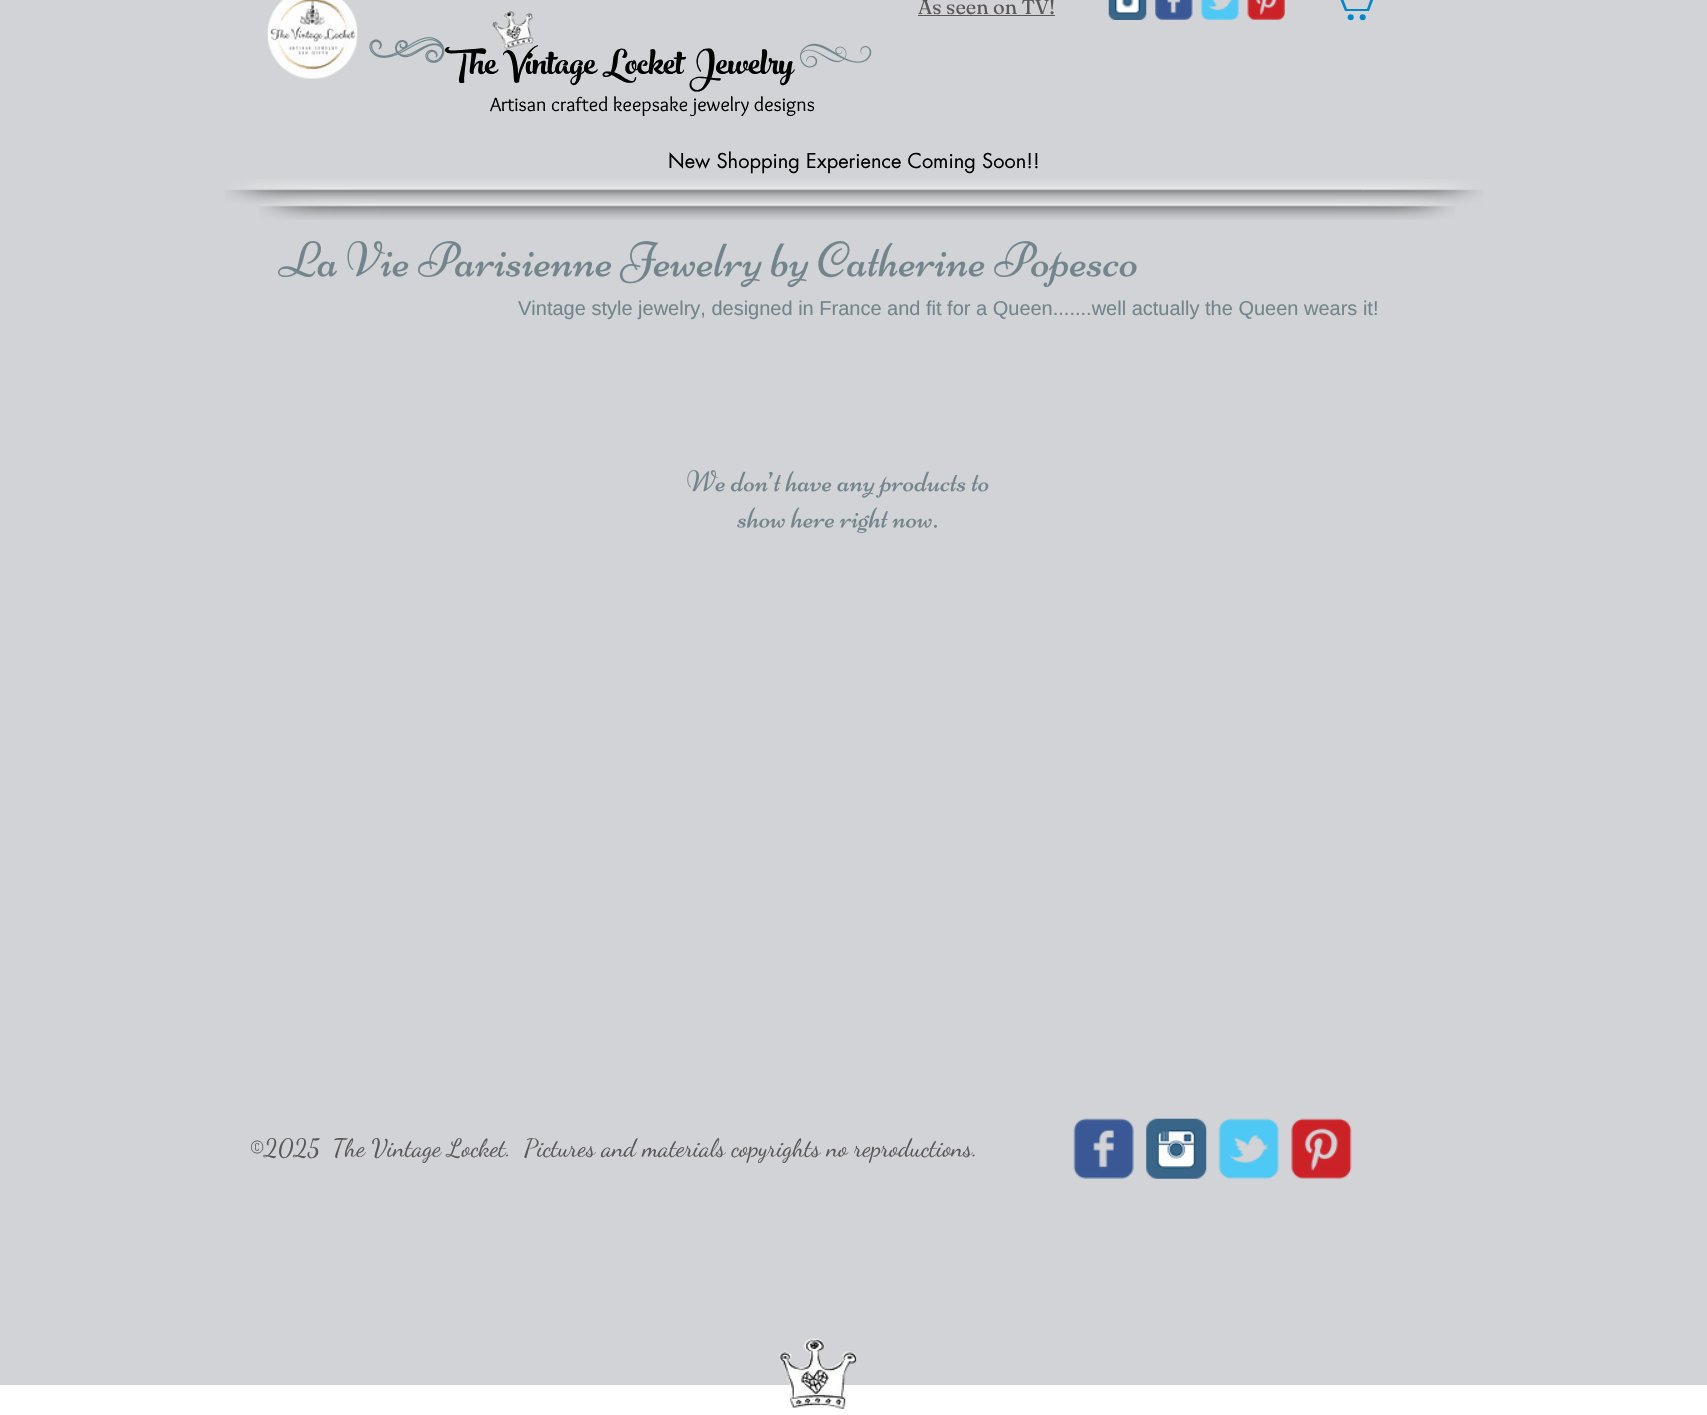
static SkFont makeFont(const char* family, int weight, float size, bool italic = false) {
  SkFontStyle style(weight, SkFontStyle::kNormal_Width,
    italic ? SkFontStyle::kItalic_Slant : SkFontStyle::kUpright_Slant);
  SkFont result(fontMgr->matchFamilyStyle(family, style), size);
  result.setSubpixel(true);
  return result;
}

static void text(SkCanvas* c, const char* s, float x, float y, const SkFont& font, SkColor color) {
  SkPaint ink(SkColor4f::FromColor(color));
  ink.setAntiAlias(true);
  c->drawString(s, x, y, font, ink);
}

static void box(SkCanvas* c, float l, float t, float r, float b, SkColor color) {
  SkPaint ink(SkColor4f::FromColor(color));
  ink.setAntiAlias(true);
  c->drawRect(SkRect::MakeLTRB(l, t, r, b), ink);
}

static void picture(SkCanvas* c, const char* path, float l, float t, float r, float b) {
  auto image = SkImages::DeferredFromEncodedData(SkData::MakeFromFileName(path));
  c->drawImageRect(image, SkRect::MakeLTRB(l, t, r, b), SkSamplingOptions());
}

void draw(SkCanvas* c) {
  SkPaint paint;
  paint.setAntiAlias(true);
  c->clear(0xffffffff);
  box(c, 0, 0, 1707, 1385, 0xffd2d3d6);
  picture(c, "img_01.png", 267, 0, 358, 79);
  picture(c, "img_02.png", 369, 37, 445, 63);
  picture(c, "img_03.png", 492, 10, 534, 50);
  picture(c, "img_04.png", 800, 43, 872, 68);
  SkFont face1 = makeFont("Fraunces", 400, 20);
  text(c, "As seen on TV!", 918, 14, face1, 0xff5b5759);
  box(c, 918, 15, 1055, 16, 0xff5b5759);
  picture(c, "img_05.png", 1108, 0, 1147, 20);
  picture(c, "img_06.png", 1155, 0, 1193, 20);
  picture(c, "img_07.png", 1201, 0, 1239, 20);
  picture(c, "img_08.png", 1247, 0, 1285, 20);
  paint.setColor(0xff0088cb);
  c->drawPath(SkPathBuilder().moveTo(1375, -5).lineTo(1369, 11).lineTo(1345, 11).lineTo(1336, -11).lineTo(1330, -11).lineTo(1330, -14).lineTo(1338, -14).lineTo(1347, 9).lineTo(1367, 9).lineTo(1372, -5).detach(), paint);
  c->drawCircle(1362.7f, 17.3f, 3, paint);
  c->drawCircle(1350.7f, 17.3f, 3, paint);
  SkFont face2 = makeFont("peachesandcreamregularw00", 400, 52.5f);
  text(c, "The Vintage Locket Jewelry", 445, 74, face2, 0xff000000);
  SkFont face3 = makeFont("Overlock", 400, 20);
  text(c, "Artisan crafted keepsake jewelry designs", 490, 111, face3, 0xff000000);
  SkFont face4 = makeFont("futura", 400, 20);
  text(c, "New Shopping Experience Coming Soon!!", 668, 168, face4, 0xff000000);
  picture(c, "img_09.png", 225, 179, 345, 204);
  picture(c, "img_10.png", 345, 179, 1363, 204);
  picture(c, "img_11.png", 1362, 179, 1483, 204);
  picture(c, "img_13.png", 378, 192, 1335, 220);
  picture(c, "img_12.png", 259, 192, 379, 220);
  picture(c, "img_14.png", 1335, 192, 1455, 220);
  picture(c, "img_15.png", 278, 241, 1137, 288);
  SkFont face5 = makeFont("Liberation Sans", 400, 20);
  text(c, "Vintage style jewelry, designed in France and fit for a Queen.......well actually the Queen wears it!", 518, 315, face5, 0xff72858c);
  picture(c, "img_16.png", 687, 470, 989, 498);
  picture(c, "img_17.png", 737, 507, 937, 533);
  SkFont face6 = makeFont("Dancing Script", 400, 25);
  text(c, "©2025  The Vintage Locket.  Pictures and materials copyrights no reproductions.", 249, 1156, face6, 0xff5b5759);
  picture(c, "img_18.png", 1073, 1118, 1134, 1179);
  picture(c, "img_19.png", 1146, 1118, 1207, 1179);
  picture(c, "img_20.png", 1218, 1118, 1279, 1179);
  picture(c, "img_21.png", 1291, 1118, 1352, 1179);
  picture(c, "img_22.png", 779, 1338, 857, 1409);
}
